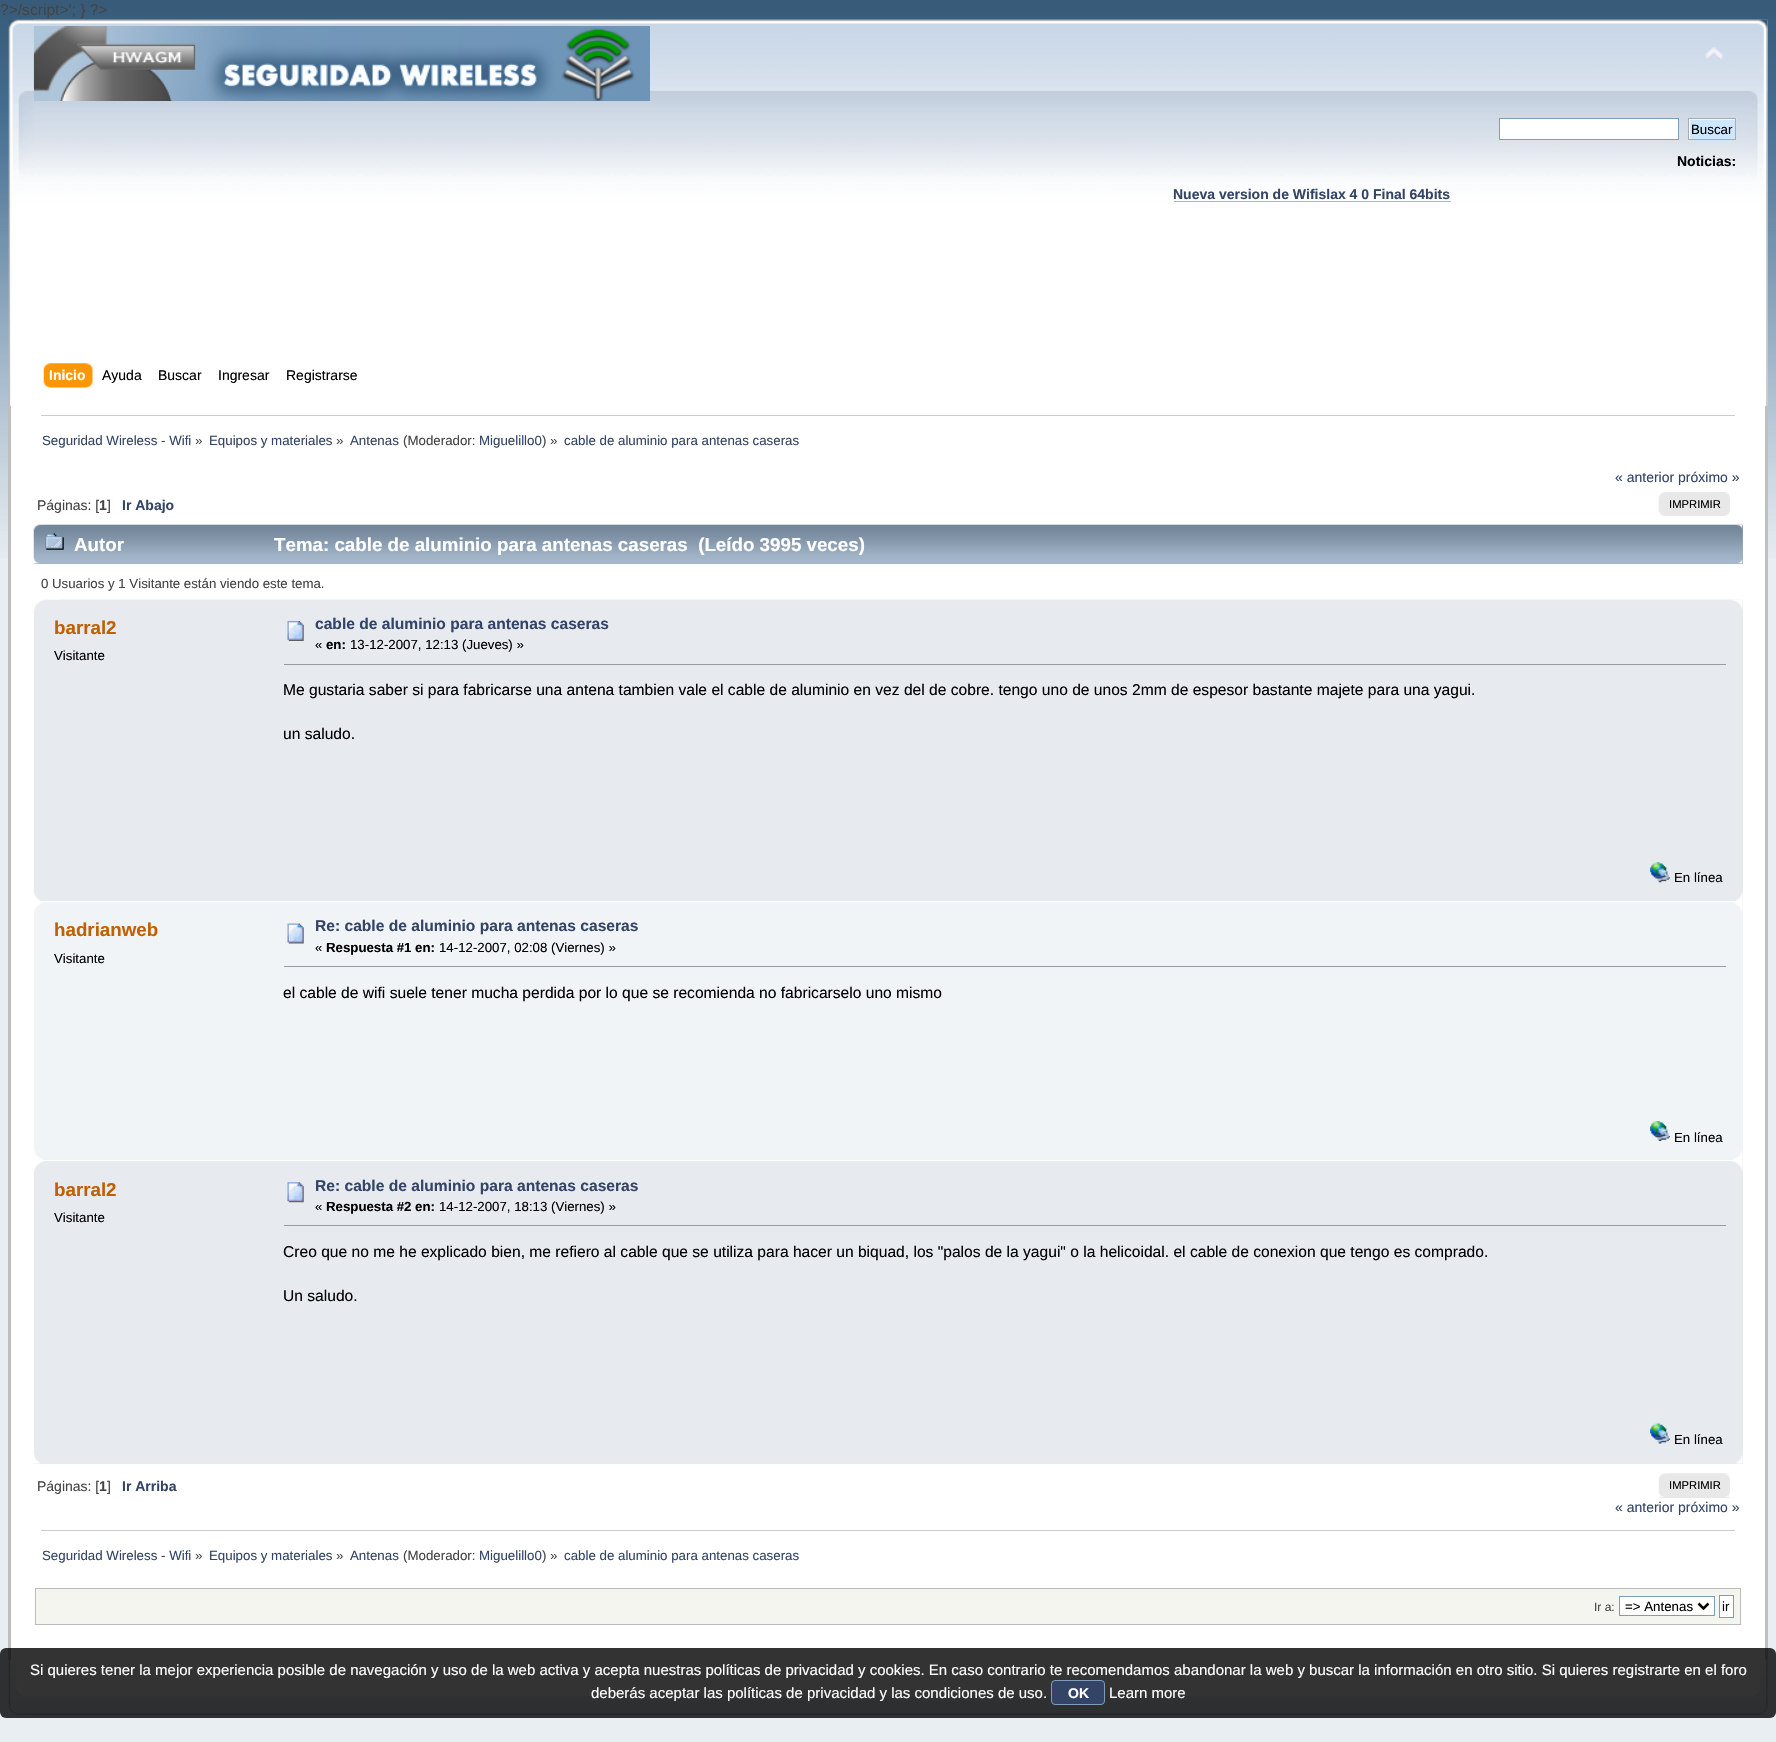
static SkFont makeFont(const char* family, int weight, float size, bool italic = false) {
  SkFontStyle style(weight, SkFontStyle::kNormal_Width,
    italic ? SkFontStyle::kItalic_Slant : SkFontStyle::kUpright_Slant);
  SkFont result(fontMgr->matchFamilyStyle(family, style), size);
  result.setSubpixel(true);
  return result;
}

static void text(SkCanvas* c, const char* s, float x, float y, const SkFont& font, SkColor color) {
  SkPaint ink(SkColor4f::FromColor(color));
  ink.setAntiAlias(true);
  c->drawString(s, x, y, font, ink);
}

static void box(SkCanvas* c, float l, float t, float r, float b, SkColor color) {
  SkPaint ink(SkColor4f::FromColor(color));
  ink.setAntiAlias(true);
  c->drawRect(SkRect::MakeLTRB(l, t, r, b), ink);
}

static void roundBox(SkCanvas* c, float l, float t, float r, float b, float radius, SkColor color) {
  SkPaint ink(SkColor4f::FromColor(color));
  ink.setAntiAlias(true);
  c->drawRoundRect(SkRect::MakeLTRB(l, t, r, b), radius, radius, ink);
}

static void picture(SkCanvas* c, const char* path, float l, float t, float r, float b) {
  auto image = SkImages::DeferredFromEncodedData(SkData::MakeFromFileName(path));
  c->drawImageRect(image, SkRect::MakeLTRB(l, t, r, b), SkSamplingOptions());
}

void draw(SkCanvas* c) {
  SkPaint paint;
  paint.setAntiAlias(true);
  c->clear(0xffe9eef2);
  picture(c, "img_01.png", 0, 0, 1776, 558);
  SkFont face1 = makeFont("Liberation Sans", 400, 15.6f);
  text(c, "?>/script>'; } ?>", 0, 15, face1, 0xff444444);
  picture(c, "img_02.png", 8, 19, 1768, 406);
  picture(c, "img_03.png", 33, 19, 1768, 406);
  picture(c, "img_04.png", 33, 26, 650, 101);
  picture(c, "img_05.png", 1705, 47, 1723, 61);
  paint.setColor(0xffffffff);
  c->drawRect(SkRect::MakeLTRB(1499.5f, 118.5f, 1678.5f, 139.5f), paint);
  paint.setStyle(SkPaint::kStroke_Style);
  paint.setStrokeWidth(1);
  paint.setColor(0xff7f9db9);
  c->drawRect(SkRect::MakeLTRB(1499.5f, 118.5f, 1678.5f, 139.5f), paint);
  picture(c, "img_06.png", 1689, 118, 1737, 140);
  paint.setColor(0xffaaaaaa);
  c->drawRect(SkRect::MakeLTRB(1688.5f, 118.5f, 1735.5f, 139.5f), paint);
  SkFont face2 = makeFont("Liberation Sans", 400, 13.3f);
  text(c, "Buscar", 1691, 134, face2, 0xff000000);
  SkFont face3 = makeFont("Liberation Sans", 700, 14);
  text(c, "Noticias:", 1677, 166, face3, 0xff000000);
  text(c, "Nueva version de Wifislax 4 0 Final 64bits", 1173, 199, face3, 0xff334466);
  box(c, 1174, 201, 1451, 202, 0xffa8b6cf);
  picture(c, "img_07.png", 50, 363, 93, 388);
  picture(c, "img_08.png", 43, 363, 87, 388);
  text(c, "Inicio", 49, 380, face3, 0xffffffff);
  SkFont face4 = makeFont("Liberation Sans", 400, 14);
  text(c, "Ayuda", 102, 380, face4, 0xff000000);
  text(c, "Buscar", 158, 380, face4, 0xff000000);
  text(c, "Ingresar", 218, 380, face4, 0xff000000);
  text(c, "Registrarse", 286, 380, face4, 0xff000000);
  box(c, 11, 406, 1765, 1660, 0xffffffff);
  box(c, 8, 406, 11, 1660, 0xffbebebe);
  box(c, 1765, 406, 1768, 1660, 0xffc0c0c0);
  box(c, 41, 415, 1735, 416, 0xffcccccc);
  text(c, "Seguridad Wireless - Wifi", 42, 445, face2, 0xff334466);
  text(c, "»", 195, 445, face2, 0xff444444);
  text(c, "Equipos y materiales", 209, 445, face2, 0xff334466);
  text(c, "»", 336, 445, face2, 0xff444444);
  text(c, "Antenas", 350, 445, face2, 0xff334466);
  text(c, "(Moderador:", 403, 445, face2, 0xff444444);
  text(c, "Miguelillo0", 479, 445, face2, 0xff334466);
  text(c, ") »", 542, 445, face2, 0xff444444);
  text(c, "cable de aluminio para antenas caseras", 564, 445, face2, 0xff334466);
  text(c, "« anterior próximo »", 1615, 482, face4, 0xff334466);
  text(c, "Páginas: [", 37, 510, face4, 0xff444444);
  text(c, "1", 99, 510, face3, 0xff444444);
  text(c, "]", 107, 510, face4, 0xff444444);
  text(c, "Ir Abajo", 122, 510, face3, 0xff334466);
  picture(c, "img_09.png", 1658, 492, 1730, 516);
  picture(c, "img_10.png", 1669, 492, 1730, 516);
  SkFont face5 = makeFont("Liberation Sans", 400, 11.25f);
  text(c, "IMPRIMIR", 1669, 508, face5, 0xff000000);
  box(c, 34, 525, 1743, 564, 0xff99abbf);
  picture(c, "img_11.png", 33, 524, 1743, 564);
  picture(c, "img_12.png", 45, 524, 1743, 564);
  picture(c, "img_13.png", 45, 533, 64, 550);
  SkFont face6 = makeFont("Liberation Sans", 700, 18.75f);
  text(c, "Autor", 74, 551, face6, 0xffffffff);
  text(c, "Tema: cable de aluminio para antenas caseras  (Leído 3995 veces)", 274, 551, face6, 0xffffffff);
  SkFont face7 = makeFont("Liberation Sans", 400, 13.25f);
  text(c, "0 Usuarios y 1 Visitante están viendo este tema.", 41, 588, face7, 0xff444444);
  box(c, 34, 600, 1743, 901, 0xffe7eaef);
  picture(c, "img_14.png", 33, 599, 1742, 613);
  picture(c, "img_15.png", 59, 599, 1743, 609);
  text(c, "barral2", 54, 634, face6, 0xffc06002);
  text(c, "Visitante", 54, 660, face7, 0xff000000);
  picture(c, "img_16.png", 287, 621, 304, 641);
  SkFont face8 = makeFont("Liberation Sans", 700, 15.6f);
  text(c, "cable de aluminio para antenas caseras", 315, 629, face8, 0xff334466);
  text(c, "«", 315, 649, face7, 0xff000000);
  SkFont face9 = makeFont("Liberation Sans", 700, 13.25f);
  text(c, "en:", 326, 649, face9, 0xff000000);
  text(c, "13-12-2007, 12:13 (Jueves) »", 350, 649, face7, 0xff000000);
  box(c, 284, 664, 1726, 665, 0xff9999aa);
  text(c, "Me gustaria saber si para fabricarse una antena tambien vale el cable de aluminio en vez del de cobre. tengo uno de unos 2mm de espesor bastante majete para una yagui.", 283, 695, face1, 0xff000000);
  text(c, "un saludo.", 283, 739, face1, 0xff000000);
  picture(c, "img_17.png", 1650, 862, 1670, 883);
  text(c, "En línea", 1674, 882, face7, 0xff000000);
  picture(c, "img_18.png", 33, 888, 41, 901);
  picture(c, "img_19.png", 1736, 893, 1743, 901);
  box(c, 34, 903, 1743, 1160, 0xfff0f4f7);
  picture(c, "img_20.png", 33, 902, 1743, 916);
  picture(c, "img_21.png", 1734, 902, 1743, 911);
  text(c, "hadrianweb", 54, 936, face6, 0xffc06002);
  text(c, "Visitante", 54, 963, face7, 0xff000000);
  picture(c, "img_22.png", 287, 923, 304, 944);
  text(c, "Re: cable de aluminio para antenas caseras", 315, 931, face8, 0xff334466);
  text(c, "«", 315, 952, face7, 0xff000000);
  text(c, "Respuesta #1 en:", 326, 952, face9, 0xff000000);
  text(c, "14-12-2007, 02:08 (Viernes) »", 439, 952, face7, 0xff000000);
  box(c, 284, 966, 1726, 967, 0xff9999aa);
  text(c, "el cable de wifi suele tener mucha perdida por lo que se recomienda no fabricarselo uno mismo", 283, 998, face1, 0xff000000);
  picture(c, "img_23.png", 1650, 1121, 1670, 1141);
  text(c, "En línea", 1674, 1142, face7, 0xff000000);
  picture(c, "img_24.png", 33, 1146, 43, 1160);
  picture(c, "img_25.png", 1733, 1151, 1743, 1160);
  box(c, 34, 1161, 1743, 1464, 0xffe7eaef);
  picture(c, "img_26.png", 33, 1161, 44, 1174);
  picture(c, "img_27.png", 1732, 1161, 1743, 1171);
  text(c, "barral2", 54, 1196, face6, 0xffc06002);
  text(c, "Visitante", 54, 1222, face7, 0xff000000);
  picture(c, "img_28.png", 287, 1182, 304, 1203);
  text(c, "Re: cable de aluminio para antenas caseras", 315, 1191, face8, 0xff334466);
  text(c, "«", 315, 1211, face7, 0xff000000);
  text(c, "Respuesta #2 en:", 326, 1211, face9, 0xff000000);
  text(c, "14-12-2007, 18:13 (Viernes) »", 439, 1211, face7, 0xff000000);
  box(c, 284, 1225, 1726, 1226, 0xff9999aa);
  text(c, "Creo que no me he explicado bien, me refiero al cable que se utiliza para hacer un biquad, los \"palos de la yagui\" o la helicoidal. el cable de conexion que tengo es comprado.", 283, 1257, face1, 0xff000000);
  text(c, "Un saludo.", 283, 1301, face1, 0xff000000);
  picture(c, "img_29.png", 1650, 1423, 1670, 1444);
  text(c, "En línea", 1674, 1444, face7, 0xff000000);
  picture(c, "img_30.png", 33, 1450, 40, 1464);
  picture(c, "img_31.png", 1736, 1455, 1743, 1464);
  text(c, "Páginas: [", 37, 1491, face4, 0xff444444);
  text(c, "1", 99, 1491, face3, 0xff444444);
  text(c, "]", 107, 1491, face4, 0xff444444);
  text(c, "Ir Arriba", 122, 1491, face3, 0xff334466);
  box(c, 1659, 1497, 1730, 1498, 0xffe8e8e8);
  picture(c, "img_32.png", 1658, 1473, 1730, 1498);
  picture(c, "img_33.png", 1669, 1473, 1730, 1498);
  text(c, "IMPRIMIR", 1669, 1489, face5, 0xff000000);
  text(c, "« anterior próximo »", 1615, 1512, face4, 0xff334466);
  box(c, 41, 1530, 1735, 1531, 0xffcccccc);
  text(c, "Seguridad Wireless - Wifi", 42, 1560, face2, 0xff334466);
  text(c, "»", 195, 1560, face2, 0xff444444);
  text(c, "Equipos y materiales", 209, 1560, face2, 0xff334466);
  text(c, "»", 336, 1560, face2, 0xff444444);
  text(c, "Antenas", 350, 1560, face2, 0xff334466);
  text(c, "(Moderador:", 403, 1560, face2, 0xff444444);
  text(c, "Miguelillo0", 479, 1560, face2, 0xff334466);
  text(c, ") »", 542, 1560, face2, 0xff444444);
  text(c, "cable de aluminio para antenas caseras", 564, 1560, face2, 0xff334466);
  paint.setStyle(SkPaint::kFill_Style);
  paint.setColor(0xfff5f5f0);
  c->drawRect(SkRect::MakeLTRB(35.5f, 1588.5f, 1740.5f, 1624.5f), paint);
  paint.setStyle(SkPaint::kStroke_Style);
  paint.setColor(0xffbbbbbb);
  c->drawRect(SkRect::MakeLTRB(35.5f, 1588.5f, 1740.5f, 1624.5f), paint);
  SkFont face10 = makeFont("Liberation Sans", 400, 12);
  text(c, "Ir a:", 1594, 1611, face10, 0xff444444);
  paint.setStyle(SkPaint::kFill_Style);
  paint.setColor(0xffffffff);
  c->drawRect(SkRect::MakeLTRB(1619.5f, 1596.5f, 1714.5f, 1615.5f), paint);
  paint.setStyle(SkPaint::kStroke_Style);
  paint.setColor(0xff7f9db9);
  c->drawRect(SkRect::MakeLTRB(1619.5f, 1596.5f, 1714.5f, 1615.5f), paint);
  paint.setStrokeWidth(2.5f);
  paint.setColor(0xff000000);
  c->drawPath(SkPathBuilder().moveTo(1698.5f, 1603.5f).lineTo(1703.5f, 1608.5f).lineTo(1708.5f, 1603.5f).detach(), paint);
  text(c, "=> Antenas", 1625, 1611, face2, 0xff000000);
  paint.setStyle(SkPaint::kFill_Style);
  paint.setColor(0xffffffff);
  c->drawRect(SkRect::MakeLTRB(1719.5f, 1595.5f, 1733.5f, 1617.5f), paint);
  paint.setStyle(SkPaint::kStroke_Style);
  paint.setStrokeWidth(1);
  paint.setColor(0xff7f9db9);
  c->drawRect(SkRect::MakeLTRB(1719.5f, 1595.5f, 1733.5f, 1617.5f), paint);
  text(c, "ir", 1722, 1611, face2, 0xff000000);
  picture(c, "img_34.png", 8, 1659, 1768, 1715);
  picture(c, "img_35.png", 34, 1659, 1768, 1715);
  roundBox(c, 0, 1648, 1776, 1718, 6, 0xcc000000);
  SkFont face11 = makeFont("Liberation Sans", 400, 15);
  text(c, "Si quieres tener la mejor experiencia posible de navegación y uso de la web activa y acepta nuestras políticas de privacidad y cookies. En caso contrario te recomendamos abandonar la web y buscar la información en otro sitio. Si quieres registrarte en el foro", 30, 1675, face11, 0xffffffff);
  text(c, "deberás aceptar las políticas de privacidad y las condiciones de uso.", 591, 1698, face11, 0xffffffff);
  paint.setStyle(SkPaint::kFill_Style);
  paint.setColor(0xff334466);
  c->drawRoundRect(SkRect::MakeLTRB(1051.5f, 1680.5f, 1104.5f, 1704.5f), 3.5f, 3.5f, paint);
  paint.setStyle(SkPaint::kStroke_Style);
  paint.setColor(0xff7f9db9);
  c->drawRoundRect(SkRect::MakeLTRB(1051.5f, 1680.5f, 1104.5f, 1704.5f), 3.5f, 3.5f, paint);
  text(c, "OK", 1068, 1698, face3, 0xffffffff);
  text(c, "Learn more", 1109, 1698, face11, 0xffffffff);
}
